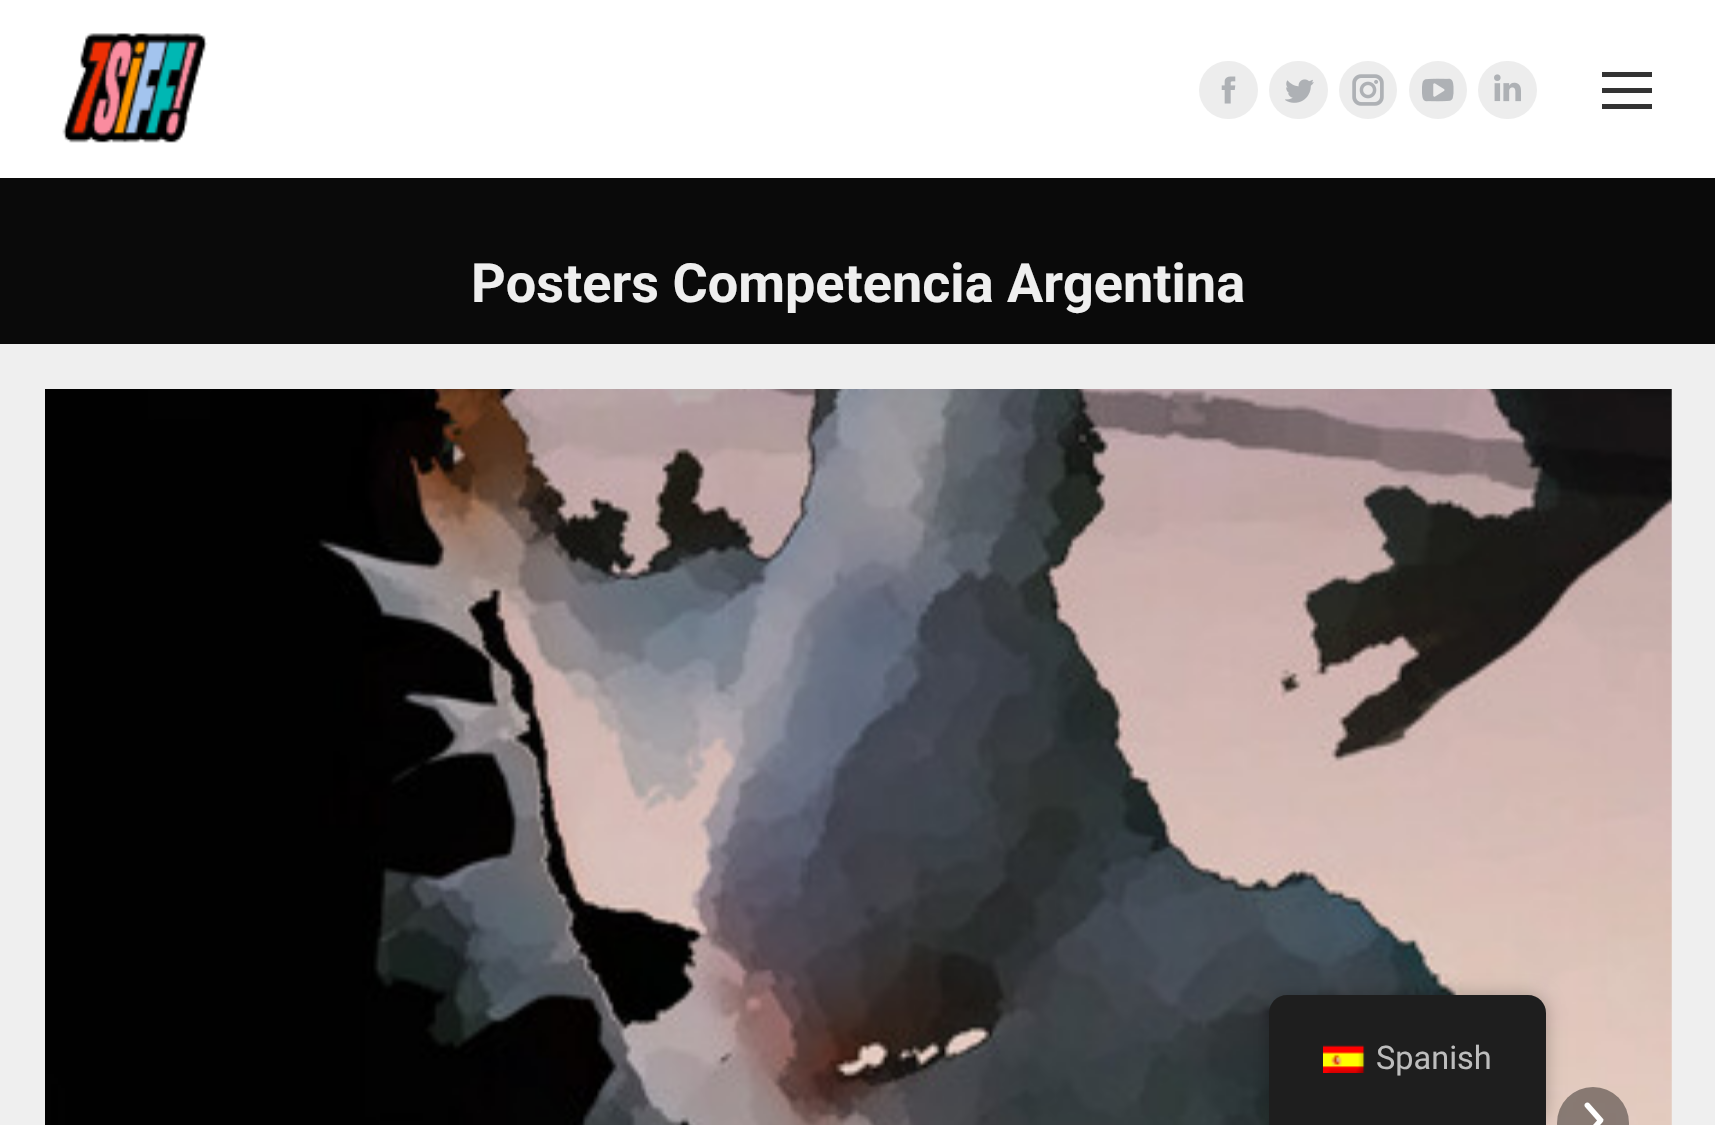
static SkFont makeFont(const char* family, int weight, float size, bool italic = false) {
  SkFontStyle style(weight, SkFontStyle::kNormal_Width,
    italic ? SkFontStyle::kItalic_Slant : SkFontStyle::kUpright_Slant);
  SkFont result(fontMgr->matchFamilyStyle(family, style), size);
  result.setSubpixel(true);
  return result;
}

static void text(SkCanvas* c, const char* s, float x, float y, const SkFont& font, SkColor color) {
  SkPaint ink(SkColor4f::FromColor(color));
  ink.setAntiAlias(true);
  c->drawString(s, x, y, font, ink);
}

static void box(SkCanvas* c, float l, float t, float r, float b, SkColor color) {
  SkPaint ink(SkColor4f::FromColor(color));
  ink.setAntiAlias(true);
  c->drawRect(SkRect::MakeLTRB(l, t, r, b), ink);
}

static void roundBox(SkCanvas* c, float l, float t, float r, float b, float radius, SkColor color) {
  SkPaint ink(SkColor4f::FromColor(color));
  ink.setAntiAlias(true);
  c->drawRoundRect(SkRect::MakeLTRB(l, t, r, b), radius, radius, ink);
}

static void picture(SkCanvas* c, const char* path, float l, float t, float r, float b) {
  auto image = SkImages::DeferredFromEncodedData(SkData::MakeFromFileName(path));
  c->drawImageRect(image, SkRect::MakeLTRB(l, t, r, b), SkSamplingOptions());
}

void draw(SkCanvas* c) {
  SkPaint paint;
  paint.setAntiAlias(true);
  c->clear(0xffefefef);
  box(c, 0, 178, 1715, 344, 0xff0a0a0a);
  paint.setColor(0x12000000);
  paint.setMaskFilter(SkMaskFilter::MakeBlur(kNormal_SkBlurStyle, 17));
  c->drawRect(SkRect::MakeLTRB(-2, -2, 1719, 180), paint);
  paint.setMaskFilter(nullptr);
  box(c, 0, 0, 1715, 178, 0xffffffff);
  picture(c, "img_01.png", 62, 33, 208, 143);
  roundBox(c, 1199, 61, 1258, 119, 29, 0xffededed);
  picture(c, "img_02.png", 1221, 76, 1236, 104);
  roundBox(c, 1269, 61, 1328, 119, 29, 0xffededed);
  picture(c, "img_03.png", 1285, 79, 1314, 103);
  paint.setColor(0xffededed);
  c->drawCircle(1368, 90, 29, paint);
  picture(c, "img_04.png", 1352, 74, 1384, 106);
  c->drawCircle(1438, 90, 29, paint);
  picture(c, "img_05.png", 1422, 78, 1454, 102);
  roundBox(c, 1478, 61, 1537, 119, 29, 0xffededed);
  picture(c, "img_06.png", 1494, 74, 1521, 102);
  box(c, 1602, 72, 1652, 77, 0xff333333);
  box(c, 1602, 88, 1652, 93, 0xff333333);
  box(c, 1602, 104, 1652, 109, 0xff333333);
  SkFont face1 = makeFont("Roboto", 700, 54);
  text(c, "Posters Competencia Argentina", 471, 302, face1, 0xffefefef);
  picture(c, "img_07.png", 45, 389, 1672, 1125);
  paint.setColor(0x66000000);
  c->drawCircle(1593, 1123, 36, paint);
  picture(c, "img_08.png", 1584, 1102, 1604, 1125);
  paint.setColor(0x40000000);
  paint.setMaskFilter(SkMaskFilter::MakeBlur(kNormal_SkBlurStyle, 9));
  c->drawRoundRect(SkRect::MakeLTRB(1269, 995, 1546, 1125), 18, 18, paint);
  paint.setMaskFilter(nullptr);
  paint.setColor(0xff1e1e1e);
  c->drawPath(SkPathBuilder().moveTo(1287, 995).lineTo(1528, 995).cubicTo(1538, 995, 1546, 1003, 1546, 1013).lineTo(1546, 1125).lineTo(1269, 1125).lineTo(1269, 1013).cubicTo(1269, 1003, 1277, 995, 1287, 995).close().detach(), paint);
  picture(c, "img_09.png", 1323, 1045, 1365, 1073);
  SkFont face2 = makeFont("Roboto", 400, 32.5f);
  text(c, "Spanish", 1376, 1069, face2, 0xffbdbdbd);
}
